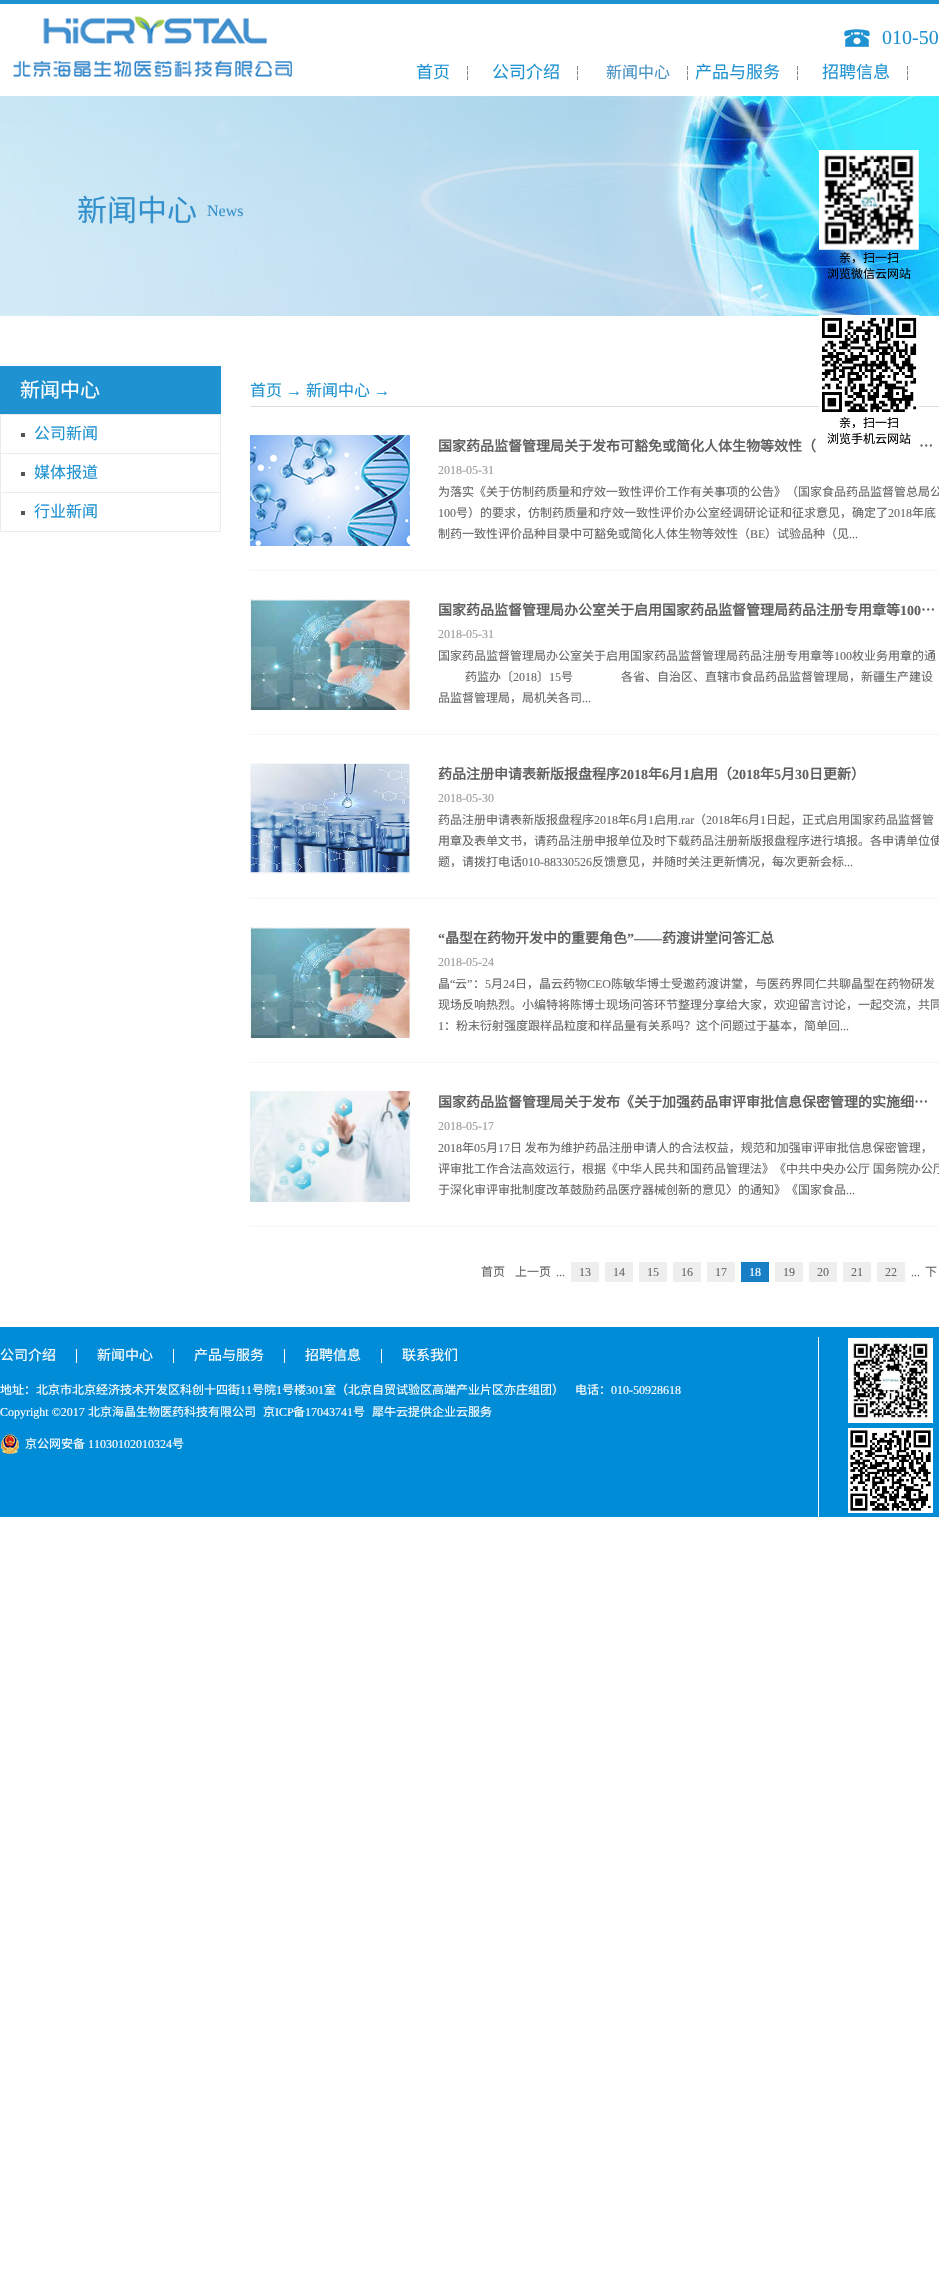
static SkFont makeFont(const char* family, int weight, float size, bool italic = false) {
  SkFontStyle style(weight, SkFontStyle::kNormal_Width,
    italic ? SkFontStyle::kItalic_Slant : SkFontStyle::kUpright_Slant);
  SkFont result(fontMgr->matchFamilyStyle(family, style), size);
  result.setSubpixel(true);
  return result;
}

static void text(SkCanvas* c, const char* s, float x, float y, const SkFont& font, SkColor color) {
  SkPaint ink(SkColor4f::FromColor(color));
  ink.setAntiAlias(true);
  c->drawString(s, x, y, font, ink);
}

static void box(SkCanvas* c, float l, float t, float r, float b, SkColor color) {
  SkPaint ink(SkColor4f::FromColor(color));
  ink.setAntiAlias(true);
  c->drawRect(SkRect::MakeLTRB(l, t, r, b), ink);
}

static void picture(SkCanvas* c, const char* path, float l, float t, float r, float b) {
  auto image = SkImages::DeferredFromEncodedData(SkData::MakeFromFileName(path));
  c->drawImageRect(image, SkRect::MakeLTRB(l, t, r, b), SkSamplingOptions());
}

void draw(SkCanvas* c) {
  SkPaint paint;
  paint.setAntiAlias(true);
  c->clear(0xffffffff);
  box(c, 0, 0, 939, 4, 0xff1f92d1);
  picture(c, "img_01.png", 13, 16, 292, 77);
  picture(c, "img_02.png", 844, 29, 870, 47);
  SkFont face1 = makeFont("Liberation Serif", 400, 20);
  text(c, "010-50", 882, 44, face1, 0xff1f92d1);
  SkFont face2 = makeFont("Noto Sans CJK SC", 400, 17);
  text(c, "首页", 416, 78, face2, 0xff1f92d1);
  picture(c, "img_03.png", 467, 66, 468, 80);
  text(c, "公司介绍", 492, 78, face2, 0xff1f92d1);
  picture(c, "img_03.png", 577, 66, 578, 80);
  SkFont face3 = makeFont("Noto Sans CJK SC", 400, 16);
  text(c, "新闻中心", 606, 78, face3, 0xff4992c5);
  picture(c, "img_03.png", 687, 66, 688, 80);
  text(c, "产品与服务", 695, 78, face2, 0xff1f92d1);
  picture(c, "img_03.png", 797, 66, 798, 80);
  text(c, "招聘信息", 822, 78, face2, 0xff1f92d1);
  picture(c, "img_03.png", 907, 66, 908, 80);
  picture(c, "img_04.png", 0, 96, 939, 316);
  SkFont face4 = makeFont("Noto Sans CJK SC", 400, 30);
  text(c, "新闻中心", 77, 221, face4, 0xff3390cb);
  SkFont face5 = makeFont("Liberation Serif", 400, 16);
  text(c, "News", 207, 216, face5, 0xff3390cb);
  picture(c, "img_05.png", 819, 150, 919, 250);
  SkFont face6 = makeFont("Noto Sans CJK SC", 400, 12);
  text(c, "亲，扫一扫", 839, 262, face6, 0xff000000);
  text(c, "浏览微信云网站", 827, 278, face6, 0xff000000);
  box(c, 0, 366, 221, 414, 0xff1f92d1);
  SkFont face7 = makeFont("Noto Sans CJK SC", 400, 20);
  text(c, "新闻中心", 20, 397, face7, 0xffffffff);
  box(c, 220, 414, 221, 532, 0xffebebeb);
  box(c, 0, 531, 221, 532, 0xffebebeb);
  box(c, 0, 414, 1, 532, 0xffebebeb);
  box(c, 1, 414, 220, 415, 0xffebebeb);
  box(c, 21, 433, 25, 437, 0xff555555);
  text(c, "公司新闻", 34, 439, face3, 0xff1f92d1);
  box(c, 1, 453, 220, 454, 0xffebebeb);
  box(c, 21, 472, 25, 476, 0xff555555);
  text(c, "媒体报道", 34, 478, face3, 0xff1f92d1);
  box(c, 1, 492, 220, 493, 0xffebebeb);
  box(c, 21, 511, 25, 515, 0xff555555);
  text(c, "行业新闻", 34, 517, face3, 0xff1f92d1);
  box(c, 250, 406, 939, 407, 0xffdddddd);
  text(c, "首页", 250, 396, face3, 0xff1f92d1);
  text(c, "→", 286, 396, face5, 0xff1f92d1);
  text(c, "新闻中心", 306, 396, face3, 0xff1f92d1);
  text(c, "→", 374, 396, face5, 0xff1f92d1);
  box(c, 250, 570, 939, 571, 0xfff6f6f6);
  picture(c, "img_06.png", 250, 435, 410, 546);
  SkFont face8 = makeFont("Noto Sans CJK SC", 700, 14);
  text(c, "国家药品监督管理局关于发布可豁免或简化人体生物等效性（", 438, 451, face8, 0xff606060);
  text(c, "…", 919, 451, face8, 0xff606060);
  SkFont face9 = makeFont("Liberation Serif", 400, 12);
  text(c, "2018-05-31", 438, 474, face9, 0xff999999);
  text(c, "为落实《关于仿制药质量和疗效一致性评价工作有关事项的公告》（国家食品药品监督管总局公", 438, 496, face6, 0xff666666);
  text(c, "100", 438, 517, face9, 0xff666666);
  text(c, "号）的要求，仿制药质量和疗效一致性评价办公室经调研论证和征求意见，确定了", 456, 517, face6, 0xff666666);
  text(c, "2018", 888, 517, face9, 0xff666666);
  text(c, "年底", 912, 517, face6, 0xff666666);
  text(c, "制药一致性评价品种目录中可豁免或简化人体生物等效性（", 438, 538, face6, 0xff666666);
  text(c, "BE", 750, 538, face9, 0xff666666);
  text(c, "）试验品种（见", 765, 538, face6, 0xff666666);
  text(c, "...", 849, 538, face9, 0xff666666);
  box(c, 250, 734, 939, 735, 0xfff6f6f6);
  picture(c, "img_07.png", 250, 599, 410, 710);
  text(c, "国家药品监督管理局办公室关于启用国家药品监督管理局药品注册专用章等", 438, 615, face8, 0xff606060);
  SkFont face10 = makeFont("Liberation Serif", 700, 14);
  text(c, "100", 900, 615, face10, 0xff606060);
  text(c, "…", 921, 615, face8, 0xff606060);
  text(c, "2018-05-31", 438, 638, face9, 0xff999999);
  text(c, "国家药品监督管理局办公室关于启用国家药品监督管理局药品注册专用章等", 438, 660, face6, 0xff666666);
  text(c, "100", 834, 660, face9, 0xff666666);
  text(c, "枚业务用章的通", 852, 660, face6, 0xff666666);
  text(c, "药监办〔", 465, 681, face6, 0xff666666);
  text(c, "2018", 513, 681, face9, 0xff666666);
  text(c, "〕", 537, 681, face6, 0xff666666);
  text(c, "15", 549, 681, face9, 0xff666666);
  text(c, "号", 561, 681, face6, 0xff666666);
  text(c, "各省、自治区、直辖市食品药品监督管理局，新疆生产建设", 621, 681, face6, 0xff666666);
  text(c, "品监督管理局，局机关各司", 438, 702, face6, 0xff666666);
  text(c, "...", 582, 702, face9, 0xff666666);
  box(c, 250, 898, 939, 899, 0xfff6f6f6);
  picture(c, "img_08.png", 250, 763, 410, 874);
  text(c, "药品注册申请表新版报盘程序", 438, 779, face8, 0xff606060);
  text(c, "2018", 620, 779, face10, 0xff606060);
  text(c, "年", 648, 779, face8, 0xff606060);
  text(c, "6", 662, 779, face10, 0xff606060);
  text(c, "月", 669, 779, face8, 0xff606060);
  text(c, "1", 683, 779, face10, 0xff606060);
  text(c, "启用（", 690, 779, face8, 0xff606060);
  text(c, "2018", 732, 779, face10, 0xff606060);
  text(c, "年", 760, 779, face8, 0xff606060);
  text(c, "5", 774, 779, face10, 0xff606060);
  text(c, "月", 781, 779, face8, 0xff606060);
  text(c, "30", 795, 779, face10, 0xff606060);
  text(c, "日更新）", 809, 779, face8, 0xff606060);
  text(c, "2018-05-30", 438, 802, face9, 0xff999999);
  text(c, "药品注册申请表新版报盘程序", 438, 824, face6, 0xff666666);
  text(c, "2018", 594, 824, face9, 0xff666666);
  text(c, "年", 618, 824, face6, 0xff666666);
  text(c, "6", 630, 824, face9, 0xff666666);
  text(c, "月", 636, 824, face6, 0xff666666);
  text(c, "1", 648, 824, face9, 0xff666666);
  text(c, "启用", 654, 824, face6, 0xff666666);
  text(c, ".rar", 678, 824, face9, 0xff666666);
  text(c, "（", 694, 824, face6, 0xff666666);
  text(c, "2018", 706, 824, face9, 0xff666666);
  text(c, "年", 730, 824, face6, 0xff666666);
  text(c, "6", 742, 824, face9, 0xff666666);
  text(c, "月", 748, 824, face6, 0xff666666);
  text(c, "1", 760, 824, face9, 0xff666666);
  text(c, "日起，正式启用国家药品监督管", 766, 824, face6, 0xff666666);
  text(c, "用章及表单文书，请药品注册申报单位及时下载药品注册新版报盘程序进行填报。各申请单位使", 438, 845, face6, 0xff666666);
  text(c, "题，请拨打电话", 438, 866, face6, 0xff666666);
  text(c, "010-88330526", 522, 866, face9, 0xff666666);
  text(c, "反馈意见，并随时关注更新情况，每次更新会标", 592, 866, face6, 0xff666666);
  text(c, "...", 844, 866, face9, 0xff666666);
  box(c, 250, 1062, 939, 1063, 0xfff6f6f6);
  picture(c, "img_09.png", 250, 927, 410, 1038);
  text(c, "“", 438, 943, face10, 0xff606060);
  text(c, "晶型在药物开发中的重要角色", 445, 943, face8, 0xff606060);
  text(c, "”——", 627, 943, face10, 0xff606060);
  text(c, "药渡讲堂问答汇总", 662, 943, face8, 0xff606060);
  text(c, "2018-05-24", 438, 966, face9, 0xff999999);
  text(c, "晶", 438, 988, face6, 0xff666666);
  text(c, "“", 450, 988, face9, 0xff666666);
  text(c, "云", 455, 988, face6, 0xff666666);
  text(c, "”", 467, 988, face9, 0xff666666);
  text(c, "：", 473, 988, face6, 0xff666666);
  text(c, "5", 485, 988, face9, 0xff666666);
  text(c, "月", 491, 988, face6, 0xff666666);
  text(c, "24", 503, 988, face9, 0xff666666);
  text(c, "日，晶云药物", 515, 988, face6, 0xff666666);
  text(c, "CEO", 587, 988, face9, 0xff666666);
  text(c, "陈敏华博士受邀药渡讲堂，与医药界同仁共聊晶型在药物研发", 611, 988, face6, 0xff666666);
  text(c, "现场反响热烈。小编特将陈博士现场问答环节整理分享给大家，欢迎留言讨论，一起交流，共同", 438, 1009, face6, 0xff666666);
  text(c, "1", 438, 1030, face9, 0xff666666);
  text(c, "：粉末衍射强度跟样品粒度和样品量有关系吗？这个问题过于基本，简单回", 444, 1030, face6, 0xff666666);
  text(c, "...", 840, 1030, face9, 0xff666666);
  box(c, 250, 1226, 939, 1227, 0xfff6f6f6);
  picture(c, "img_10.png", 250, 1091, 410, 1202);
  text(c, "国家药品监督管理局关于发布《关于加强药品审评审批信息保密管理的实施细…", 438, 1107, face8, 0xff606060);
  text(c, "2018-05-17", 438, 1130, face9, 0xff999999);
  text(c, "2018", 438, 1152, face9, 0xff666666);
  text(c, "年", 462, 1152, face6, 0xff666666);
  text(c, "05", 474, 1152, face9, 0xff666666);
  text(c, "月", 486, 1152, face6, 0xff666666);
  text(c, "17", 498, 1152, face9, 0xff666666);
  text(c, "日 发布为维护药品注册申请人的合法权益，规范和加强审评审批信息保密管理，", 510, 1152, face6, 0xff666666);
  text(c, "评审批工作合法高效运行，根据《中华人民共和国药品管理法》《中共中央办公厅 国务院办公厅", 438, 1173, face6, 0xff666666);
  text(c, "于深化审评审批制度改革鼓励药品医疗器械创新的意见〉的通知》《国家食品", 438, 1194, face6, 0xff666666);
  text(c, "...", 846, 1194, face9, 0xff666666);
  text(c, "首页", 481, 1276, face6, 0xff666666);
  text(c, "上一页", 515, 1276, face6, 0xff666666);
  text(c, "...", 556, 1276, face9, 0xff666666);
  box(c, 571, 1262, 599, 1282, 0xffeeeeee);
  text(c, "13", 579, 1276, face9, 0xff666666);
  box(c, 605, 1262, 633, 1282, 0xffeeeeee);
  text(c, "14", 613, 1276, face9, 0xff666666);
  box(c, 639, 1262, 667, 1282, 0xffeeeeee);
  text(c, "15", 647, 1276, face9, 0xff666666);
  box(c, 673, 1262, 701, 1282, 0xffeeeeee);
  text(c, "16", 681, 1276, face9, 0xff666666);
  box(c, 707, 1262, 735, 1282, 0xffeeeeee);
  text(c, "17", 715, 1276, face9, 0xff666666);
  box(c, 741, 1262, 769, 1282, 0xff187ec6);
  text(c, "18", 749, 1276, face9, 0xffffffff);
  box(c, 775, 1262, 803, 1282, 0xffeeeeee);
  text(c, "19", 783, 1276, face9, 0xff666666);
  box(c, 809, 1262, 837, 1282, 0xffeeeeee);
  text(c, "20", 817, 1276, face9, 0xff666666);
  box(c, 843, 1262, 871, 1282, 0xffeeeeee);
  text(c, "21", 851, 1276, face9, 0xff666666);
  box(c, 877, 1262, 905, 1282, 0xffeeeeee);
  text(c, "22", 885, 1276, face9, 0xff666666);
  text(c, "...", 911, 1276, face9, 0xff666666);
  text(c, "下", 925, 1276, face6, 0xff666666);
  picture(c, "img_11.png", 819, 315, 919, 412);
  text(c, "亲，扫一扫", 839, 427, face6, 0xff000000);
  text(c, "浏览手机云网站", 827, 443, face6, 0xff000000);
  box(c, 0, 1327, 939, 1517, 0xff008cd6);
  box(c, 76, 1349, 77, 1363, 0xffffffff);
  SkFont face11 = makeFont("Noto Sans CJK SC", 400, 14);
  text(c, "公司介绍", 0, 1360, face11, 0xffffffff);
  box(c, 173, 1349, 174, 1363, 0xffffffff);
  text(c, "新闻中心", 97, 1360, face11, 0xffffffff);
  box(c, 284, 1349, 285, 1363, 0xffffffff);
  text(c, "产品与服务", 194, 1360, face11, 0xffffffff);
  box(c, 381, 1349, 382, 1363, 0xffffffff);
  text(c, "招聘信息", 305, 1360, face11, 0xffffffff);
  text(c, "联系我们", 402, 1360, face11, 0xffffffff);
  box(c, 818, 1337, 819, 1517, 0xffffffff);
  picture(c, "img_12.png", 848, 1338, 933, 1423);
  picture(c, "img_13.png", 848, 1428, 933, 1513);
  text(c, "地址：北京市北京经济技术开发区科创十四街", 0, 1394, face6, 0xffffffff);
  text(c, "11", 240, 1394, face9, 0xffffffff);
  text(c, "号院", 252, 1394, face6, 0xffffffff);
  text(c, "1", 276, 1394, face9, 0xffffffff);
  text(c, "号楼", 282, 1394, face6, 0xffffffff);
  text(c, "301", 306, 1394, face9, 0xffffffff);
  text(c, "室（北京自贸试验区高端产业片区亦庄组团）", 324, 1394, face6, 0xffffffff);
  text(c, "电话：", 575, 1394, face6, 0xffffffff);
  text(c, "010-50928618", 611, 1394, face9, 0xffffffff);
  text(c, "Copyright ©2017", 0, 1416, face9, 0xffffffff);
  text(c, "北京海晶生物医药科技有限公司", 88, 1416, face6, 0xffffffff);
  text(c, "京", 263, 1416, face6, 0xffffffff);
  text(c, "ICP", 275, 1416, face9, 0xffffffff);
  text(c, "备", 293, 1416, face6, 0xffffffff);
  text(c, "17043741", 305, 1416, face9, 0xffffffff);
  text(c, "号", 353, 1416, face6, 0xffffffff);
  text(c, "犀牛云提供企业云服务", 372, 1416, face6, 0xffffffff);
  picture(c, "img_14.png", 1, 1434, 19, 1454);
  text(c, "京公网安备", 25, 1448, face6, 0xffffffff);
  text(c, "11030102010324", 88, 1448, face9, 0xffffffff);
  text(c, "号", 172, 1448, face6, 0xffffffff);
}
